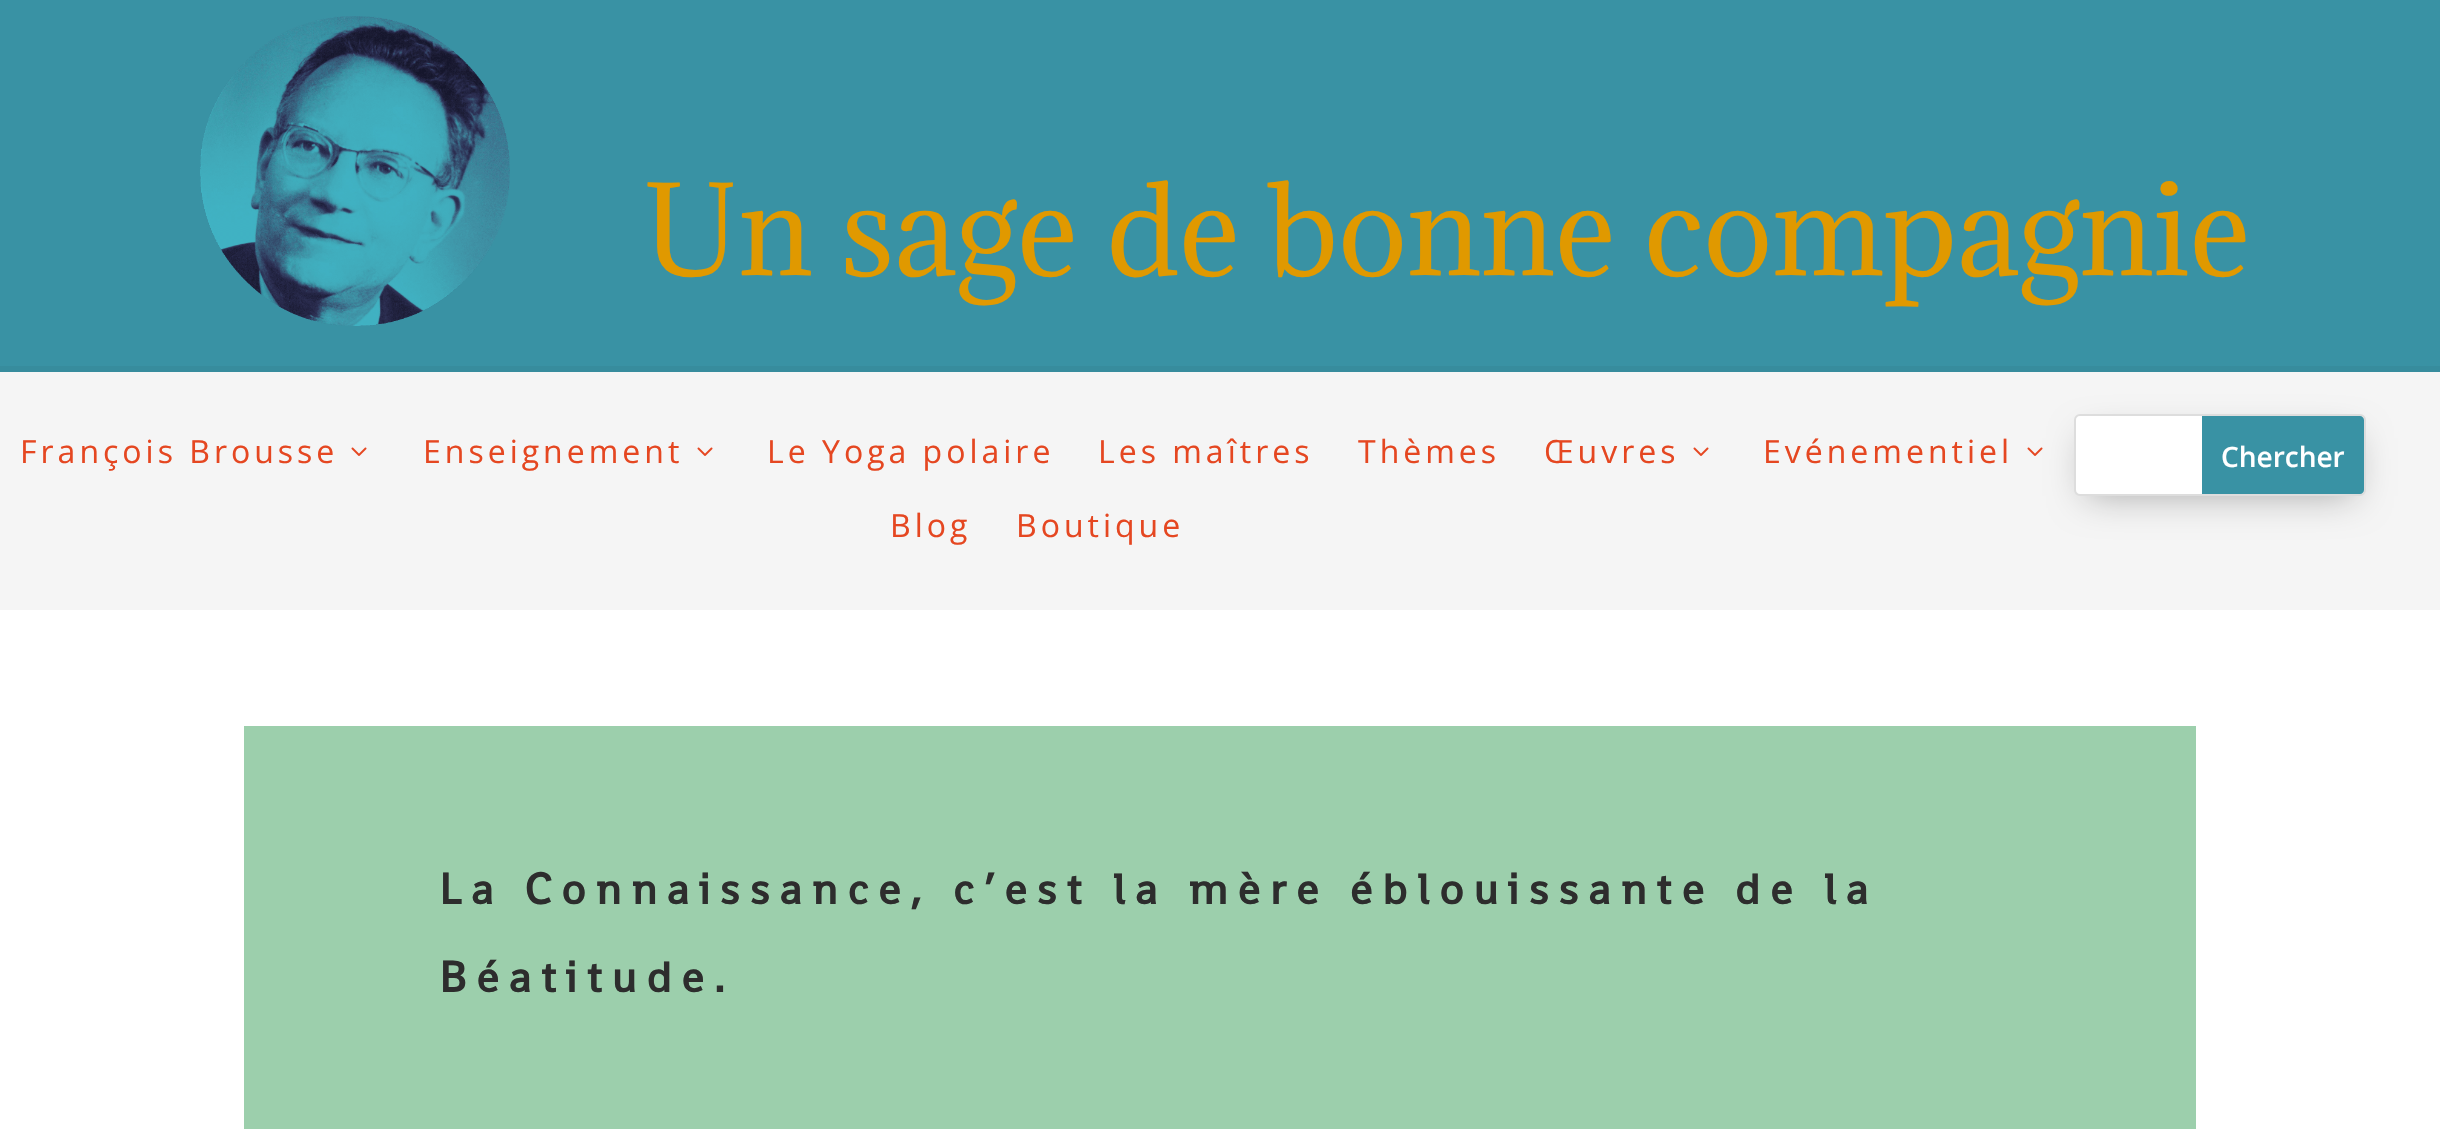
static SkFont makeFont(const char* family, int weight, float size, bool italic = false) {
  SkFontStyle style(weight, SkFontStyle::kNormal_Width,
    italic ? SkFontStyle::kItalic_Slant : SkFontStyle::kUpright_Slant);
  SkFont result(fontMgr->matchFamilyStyle(family, style), size);
  result.setSubpixel(true);
  return result;
}

static void text(SkCanvas* c, const char* s, float x, float y, const SkFont& font, SkColor color) {
  SkPaint ink(SkColor4f::FromColor(color));
  ink.setAntiAlias(true);
  c->drawString(s, x, y, font, ink);
}

static void spacedText(SkCanvas* c, const char* s, float x, float y, const SkFont& font, const SkPaint& ink, float letter, float word) {
  std::vector<SkGlyphID> glyphs(font.countText(s, strlen(s), SkTextEncoding::kUTF8));
  std::vector<float> xs(glyphs.size());
  font.textToGlyphs(s, strlen(s), SkTextEncoding::kUTF8, glyphs);
  font.getXPos(glyphs, xs, x);
  float extra = 0;
  for (size_t i = 0; i < glyphs.size(); i++) {
    xs[i] += extra;
    extra += letter + word * (glyphs[i] == font.unicharToGlyph(' '));
  }
  c->drawTextBlob(SkTextBlob::MakeFromPosHGlyphs(glyphs, xs, y, font), 0, 0, ink);
}

static void box(SkCanvas* c, float l, float t, float r, float b, SkColor color) {
  SkPaint ink(SkColor4f::FromColor(color));
  ink.setAntiAlias(true);
  c->drawRect(SkRect::MakeLTRB(l, t, r, b), ink);
}

static void picture(SkCanvas* c, const char* path, float l, float t, float r, float b) {
  auto image = SkImages::DeferredFromEncodedData(SkData::MakeFromFileName(path));
  c->drawImageRect(image, SkRect::MakeLTRB(l, t, r, b), SkSamplingOptions());
}

void draw(SkCanvas* c) {
  SkPaint paint;
  paint.setAntiAlias(true);
  c->clear(0xffffffff);
  box(c, 0, 372, 2440, 610, 0xfff5f5f5);
  box(c, 0, 0, 2440, 366, 0xff3992a4);
  box(c, 0, 366, 2440, 372, 0xff378c9d);
  picture(c, "img_01.png", 200, 16, 510, 326);
  SkFont face1 = makeFont("Adamina", 400, 116);
  text(c, "Un sage de bonne compagnie", 644, 275, face1, 0xffe09900);
  SkFont face2 = makeFont("Open Sans", 400, 32);
  paint.setColor(0xffe54721);
  spacedText(c, "François Brousse", 20, 463, face2, paint, 4, 0);
  picture(c, "img_02.png", 351, 447, 367, 456);
  spacedText(c, "Enseignement", 423, 463, face2, paint, 4, 0);
  picture(c, "img_02.png", 697, 447, 713, 456);
  spacedText(c, "Le Yoga polaire", 767, 463, face2, paint, 4, 0);
  spacedText(c, "Les maîtres", 1098, 463, face2, paint, 4, 0);
  spacedText(c, "Thèmes", 1358, 463, face2, paint, 4, 0);
  spacedText(c, "Œuvres", 1544, 463, face2, paint, 4, 0);
  picture(c, "img_02.png", 1693, 447, 1709, 456);
  spacedText(c, "Evénementiel", 1763, 463, face2, paint, 4, 0);
  paint.setColor(0x4d000000);
  paint.setMaskFilter(SkMaskFilter::MakeBlur(kNormal_SkBlurStyle, 18));
  c->drawRect(SkRect::MakeLTRB(2086, 438, 2354, 496), paint);
  paint.setMaskFilter(nullptr);
  picture(c, "img_03.png", 2027, 447, 2043, 456);
  paint.setColor(0xffe54721);
  spacedText(c, "Blog", 890, 537, face2, paint, 4, 0);
  spacedText(c, "Boutique", 1016, 537, face2, paint, 4, 0);
  paint.setStyle(SkPaint::kStroke_Style);
  paint.setStrokeWidth(2);
  paint.setColor(0xffdddddd);
  c->drawRoundRect(SkRect::MakeLTRB(2075, 415, 2365, 495), 5, 5, paint);
  paint.setStyle(SkPaint::kFill_Style);
  paint.setColor(0xffffffff);
  c->drawPath(SkPathBuilder().moveTo(2080, 416).lineTo(2202, 416).lineTo(2202, 494).lineTo(2080, 494).cubicTo(2078, 494, 2076, 492, 2076, 490).lineTo(2076, 420).cubicTo(2076, 418, 2078, 416, 2080, 416).close().detach(), paint);
  paint.setColor(0xff3992a4);
  c->drawPath(SkPathBuilder().moveTo(2202, 416).lineTo(2360, 416).cubicTo(2362, 416, 2364, 418, 2364, 420).lineTo(2364, 490).cubicTo(2364, 492, 2362, 494, 2360, 494).lineTo(2202, 494).close().detach(), paint);
  SkFont face3 = makeFont("Open Sans", 600, 28);
  text(c, "Chercher", 2221, 467, face3, 0xffffffff);
  box(c, 244, 726, 2196, 1129, 0xff9ccfac);
  SkFont face4 = makeFont("Shanti", 700, 44);
  paint.setColor(0xff2d2d2d);
  spacedText(c, "La Connaissance, c’est la mère éblouissante de la", 439, 904, face4, paint, 10, 0);
  spacedText(c, "Béatitude.", 439, 992, face4, paint, 10, 0);
}
